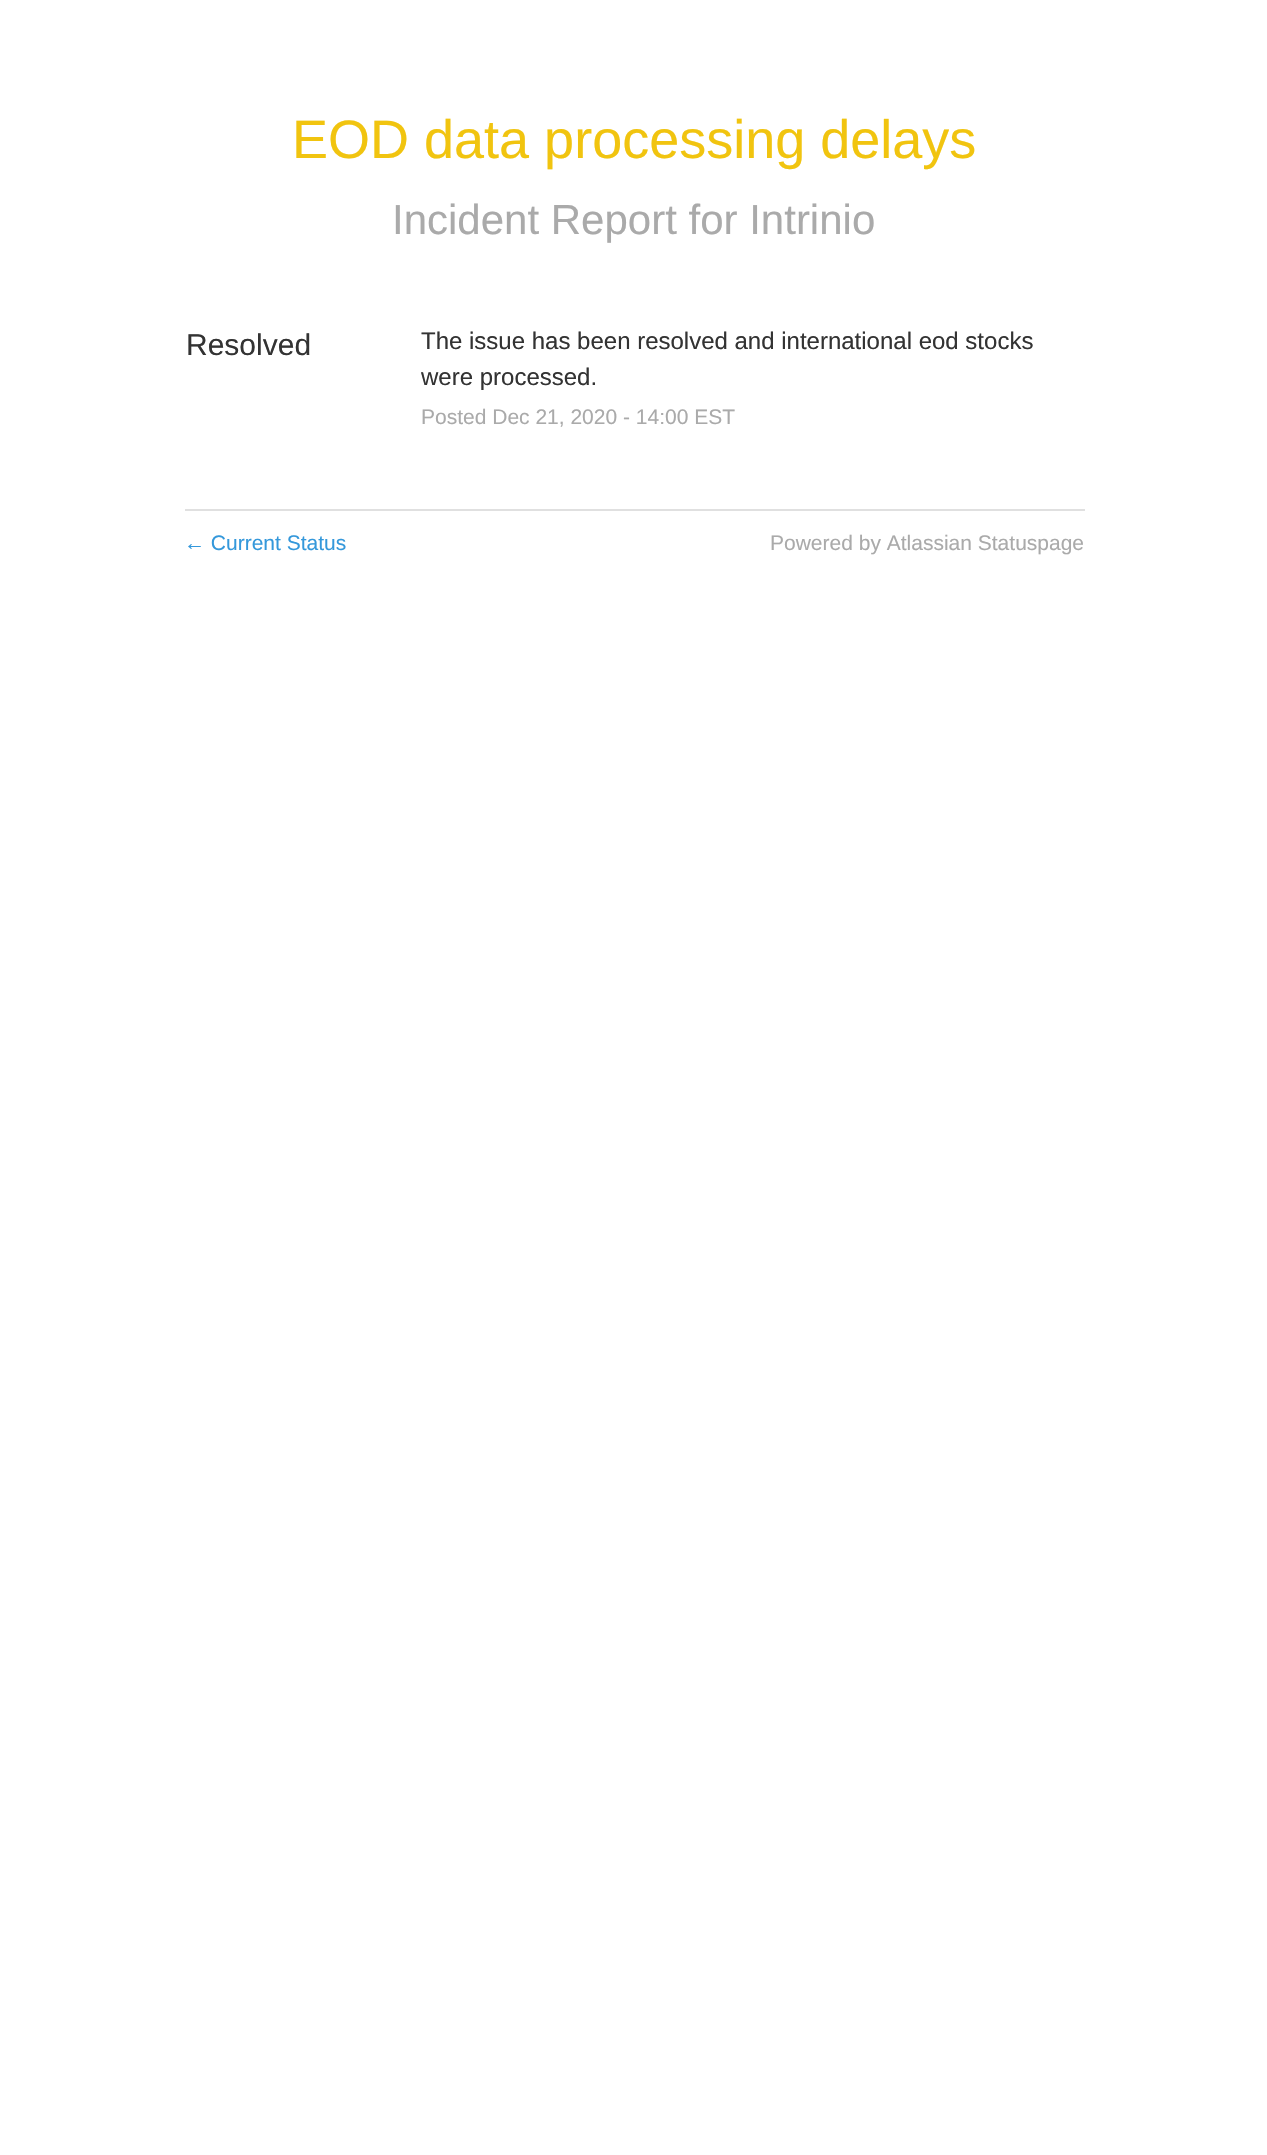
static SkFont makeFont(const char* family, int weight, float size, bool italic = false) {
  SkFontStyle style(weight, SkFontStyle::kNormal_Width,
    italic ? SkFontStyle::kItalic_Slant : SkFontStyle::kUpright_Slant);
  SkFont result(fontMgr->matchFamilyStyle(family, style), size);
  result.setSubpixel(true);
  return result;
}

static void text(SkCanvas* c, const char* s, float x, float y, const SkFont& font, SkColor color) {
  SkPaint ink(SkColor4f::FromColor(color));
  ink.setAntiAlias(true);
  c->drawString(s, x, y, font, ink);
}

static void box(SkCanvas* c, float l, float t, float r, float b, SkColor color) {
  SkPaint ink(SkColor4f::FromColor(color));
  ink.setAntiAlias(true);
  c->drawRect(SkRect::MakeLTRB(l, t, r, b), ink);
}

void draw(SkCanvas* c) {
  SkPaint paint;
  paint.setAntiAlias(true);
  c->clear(0xffffffff);
  SkFont face1 = makeFont("Liberation Sans", 400, 54);
  text(c, "EOD data processing delays", 292, 158, face1, 0xfff1c40f);
  SkFont face2 = makeFont("Liberation Sans", 400, 42);
  text(c, "Incident Report for Intrinio", 392, 234, face2, 0xffaaaaaa);
  SkFont face3 = makeFont("Liberation Sans", 400, 30);
  text(c, "Resolved", 186, 355, face3, 0xff333333);
  SkFont face4 = makeFont("Liberation Sans", 400, 24);
  text(c, "The issue has been resolved and international eod stocks", 421, 349, face4, 0xff333333);
  text(c, "were processed.", 421, 385, face4, 0xff333333);
  SkFont face5 = makeFont("Liberation Sans", 400, 21);
  text(c, "Posted Dec 21, 2020 - 14:00 EST", 421, 424, face5, 0xffaaaaaa);
  box(c, 185, 509, 1085, 511, 0xffe0e0e0);
  text(c, "← Current Status", 184, 550, face5, 0xff3498db);
  text(c, "Powered by Atlassian Statuspage", 770, 550, face5, 0xffaaaaaa);
}
